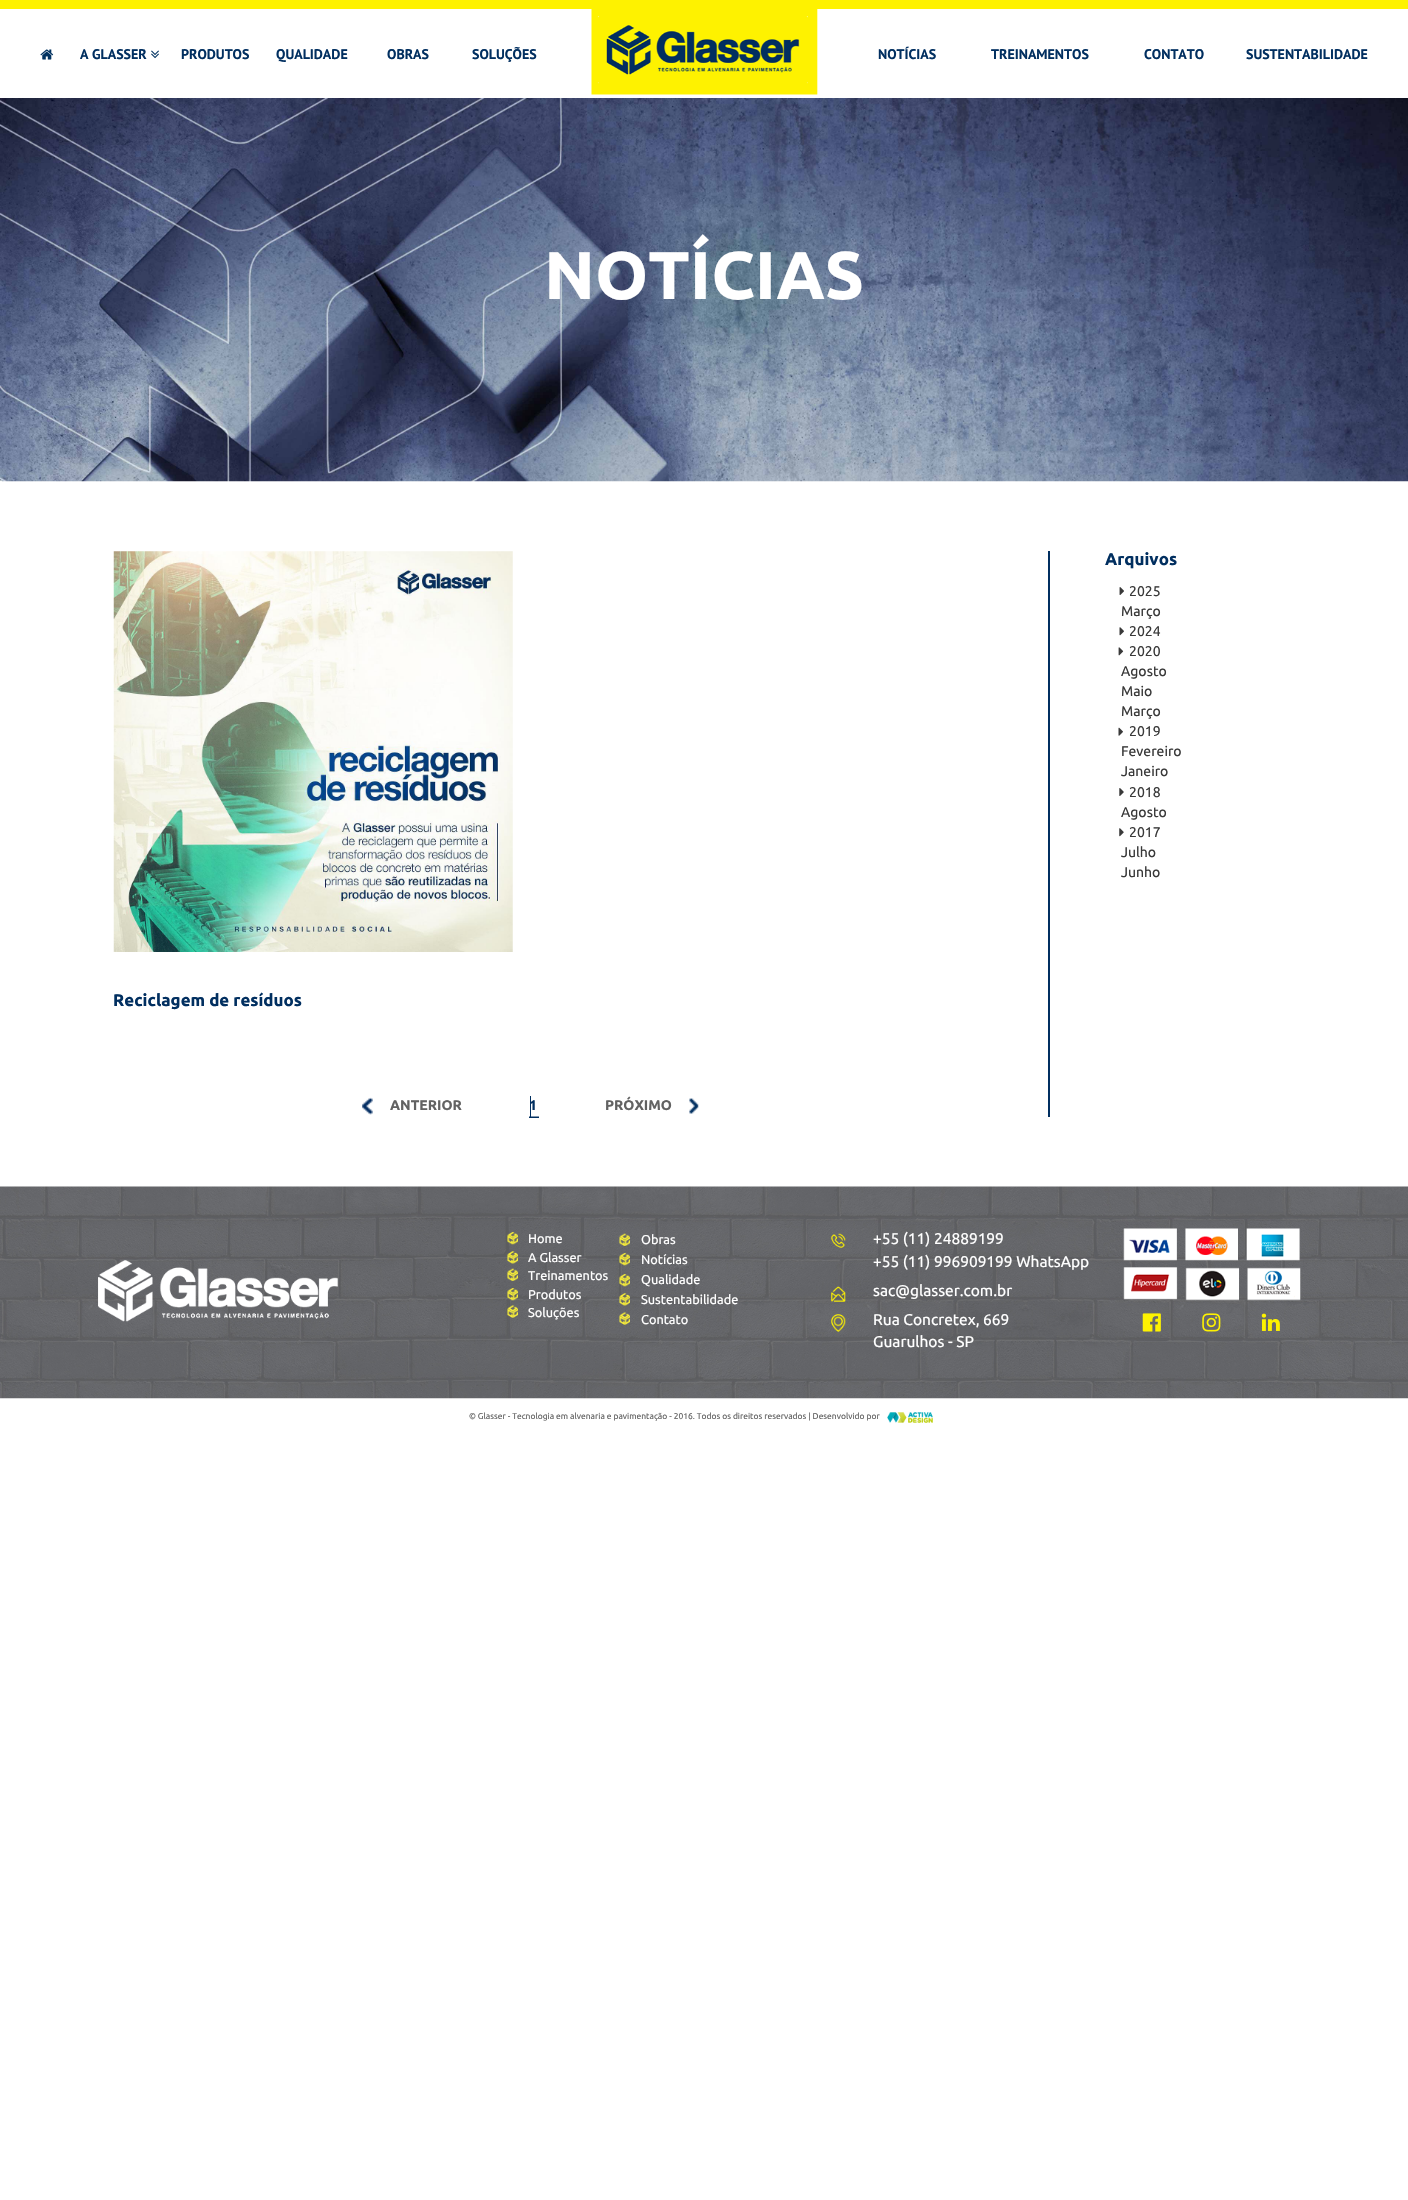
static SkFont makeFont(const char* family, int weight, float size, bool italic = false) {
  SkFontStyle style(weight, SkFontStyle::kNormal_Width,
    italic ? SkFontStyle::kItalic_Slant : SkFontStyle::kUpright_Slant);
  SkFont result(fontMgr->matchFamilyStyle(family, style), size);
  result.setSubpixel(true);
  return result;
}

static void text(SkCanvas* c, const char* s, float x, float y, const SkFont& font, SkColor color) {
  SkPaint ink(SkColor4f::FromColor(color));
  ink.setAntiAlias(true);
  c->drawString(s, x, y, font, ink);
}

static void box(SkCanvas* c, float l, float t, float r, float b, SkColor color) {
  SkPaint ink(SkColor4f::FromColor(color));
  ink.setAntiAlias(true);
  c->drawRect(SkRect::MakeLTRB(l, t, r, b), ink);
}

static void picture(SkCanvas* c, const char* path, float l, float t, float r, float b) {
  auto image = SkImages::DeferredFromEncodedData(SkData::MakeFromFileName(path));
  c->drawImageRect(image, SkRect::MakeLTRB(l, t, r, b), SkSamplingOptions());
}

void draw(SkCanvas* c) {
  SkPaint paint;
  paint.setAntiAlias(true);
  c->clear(0xffffffff);
  box(c, 0, 0, 1408, 9, 0xfffef200);
  picture(c, "img_01.png", 40, 49, 54, 60);
  SkFont face1 = makeFont("PT Sans", 700, 14);
  text(c, "A GLASSER", 80, 59, face1, 0xff012f60);
  picture(c, "img_02.png", 151, 50, 159, 59);
  text(c, "PRODUTOS", 181, 59, face1, 0xff012f60);
  text(c, "QUALIDADE", 276, 59, face1, 0xff012f60);
  text(c, "OBRAS", 387, 59, face1, 0xff012f60);
  text(c, "SOLUÇÕES", 472, 59, face1, 0xff012f60);
  picture(c, "img_03.png", 591, 9, 818, 95);
  text(c, "NOTÍCIAS", 878, 59, face1, 0xff012f60);
  text(c, "TREINAMENTOS", 991, 59, face1, 0xff012f60);
  text(c, "CONTATO", 1144, 59, face1, 0xff012f60);
  text(c, "SUSTENTABILIDADE", 1246, 59, face1, 0xff012f60);
  picture(c, "img_04.png", 0, 98, 1408, 482);
  SkFont face2 = makeFont("Ubuntu", 700, 67.5f);
  text(c, "NOTÍCIAS", 544, 299, face2, 0xffffffff);
  SkFont face3 = makeFont("Ubuntu", 700, 16.9f);
  text(c, "Arquivos", 1105, 565, face3, 0xff012f60);
  picture(c, "img_05.png", 1119, 587, 1124, 595);
  SkFont face4 = makeFont("Ubuntu", 400, 14);
  text(c, "2025", 1129, 596, face4, 0xff393939);
  text(c, "Março", 1121, 616, face4, 0xff393939);
  picture(c, "img_06.png", 1119, 627, 1124, 636);
  text(c, "2024", 1129, 636, face4, 0xff393939);
  picture(c, "img_07.png", 1118, 647, 1124, 656);
  text(c, "2020", 1129, 656, face4, 0xff393939);
  text(c, "Agosto", 1121, 676, face4, 0xff393939);
  text(c, "Maio", 1121, 696, face4, 0xff393939);
  text(c, "Março", 1121, 716, face4, 0xff393939);
  picture(c, "img_08.png", 1118, 727, 1123, 736);
  text(c, "2019", 1129, 736, face4, 0xff393939);
  text(c, "Fevereiro", 1121, 756, face4, 0xff393939);
  text(c, "Janeiro", 1121, 776, face4, 0xff393939);
  picture(c, "img_09.png", 1119, 788, 1124, 796);
  text(c, "2018", 1129, 797, face4, 0xff393939);
  text(c, "Agosto", 1121, 817, face4, 0xff393939);
  picture(c, "img_10.png", 1119, 828, 1124, 837);
  text(c, "2017", 1129, 837, face4, 0xff393939);
  text(c, "Julho", 1121, 857, face4, 0xff393939);
  text(c, "Junho", 1121, 877, face4, 0xff393939);
  box(c, 1048, 551, 1050, 1117, 0xff012f60);
  picture(c, "img_11.png", 113, 551, 513, 952);
  text(c, "Reciclagem de resíduos", 113, 1006, face3, 0xff012f60);
  picture(c, "img_12.png", 362, 1097, 373, 1115);
  SkFont face5 = makeFont("Ubuntu", 700, 14);
  text(c, "ANTERIOR", 390, 1110, face5, 0xff626262);
  paint.setColor(0xff012f60);
  c->drawPath(SkPathBuilder().moveTo(529, 1116.5f).lineTo(529, 1118).lineTo(531, 1118).lineTo(531, 1096).lineTo(530, 1096).lineTo(530, 1116.5f).close().detach(), paint);
  text(c, "1", 529, 1110, face5, 0xff012f60);
  c->drawPath(SkPathBuilder().moveTo(530, 1096).lineTo(530, 1118).lineTo(539, 1118).lineTo(539, 1116.5f).lineTo(530, 1116.5f).close().detach(), paint);
  text(c, "PRÓXIMO", 605, 1110, face5, 0xff626262);
  picture(c, "img_13.png", 689, 1098, 699, 1114);
  picture(c, "img_14.png", 0, 1186, 1408, 1399);
  picture(c, "img_15.png", 98, 1260, 338, 1322);
  picture(c, "img_16.png", 507, 1232, 518, 1245);
  SkFont face6 = makeFont("Ubuntu", 400, 12.75f);
  text(c, "Home", 528, 1243, face6, 0xffffffff);
  picture(c, "img_17.png", 507, 1251, 518, 1264);
  text(c, "A Glasser", 528, 1262, face6, 0xffffffff);
  picture(c, "img_18.png", 507, 1268, 518, 1281);
  text(c, "Treinamentos", 528, 1280, face6, 0xffffffff);
  picture(c, "img_19.png", 507, 1288, 518, 1301);
  text(c, "Produtos", 528, 1299, face6, 0xffffffff);
  picture(c, "img_20.png", 507, 1305, 518, 1318);
  text(c, "Soluções", 528, 1317, face6, 0xffffffff);
  picture(c, "img_21.png", 619, 1233, 630, 1246);
  text(c, "Obras", 641, 1244, face6, 0xffffffff);
  picture(c, "img_22.png", 619, 1253, 630, 1266);
  text(c, "Notícias", 641, 1264, face6, 0xffffffff);
  picture(c, "img_23.png", 619, 1274, 630, 1287);
  text(c, "Qualidade", 641, 1284, face6, 0xffffffff);
  picture(c, "img_24.png", 619, 1293, 630, 1306);
  text(c, "Sustentabilidade", 641, 1304, face6, 0xffffffff);
  picture(c, "img_25.png", 619, 1312, 630, 1325);
  text(c, "Contato", 641, 1324, face6, 0xffffffff);
  picture(c, "img_26.png", 831, 1233, 846, 1248);
  SkFont face7 = makeFont("Ubuntu", 400, 15.5f);
  text(c, "+55 (11) 24889199", 873, 1244, face7, 0xffffffff);
  text(c, "+55 (11) 996909199 WhatsApp", 873, 1267, face7, 0xffffffff);
  picture(c, "img_27.png", 831, 1286, 846, 1302);
  text(c, "sac@glasser.com.br", 873, 1296, face7, 0xffffffff);
  picture(c, "img_28.png", 831, 1314, 846, 1332);
  text(c, "Rua Concretex, 669", 873, 1325, face7, 0xffffffff);
  text(c, "Guarulhos - SP", 873, 1347, face7, 0xffffffff);
  picture(c, "img_29.png", 1123, 1228, 1301, 1301);
  picture(c, "img_30.png", 1142, 1313, 1161, 1332);
  picture(c, "img_31.png", 1202, 1313, 1221, 1332);
  picture(c, "img_32.png", 1261, 1313, 1280, 1331);
  SkFont face8 = makeFont("Ubuntu", 400, 8.45f);
  text(c, "© Glasser - Tecnologia em alvenaria e pavimentação - 2016. Todos os direitos reservados | Desenvolvido por", 469, 1419, face8, 0xff626262);
  picture(c, "img_33.png", 887, 1412, 933, 1423);
}
